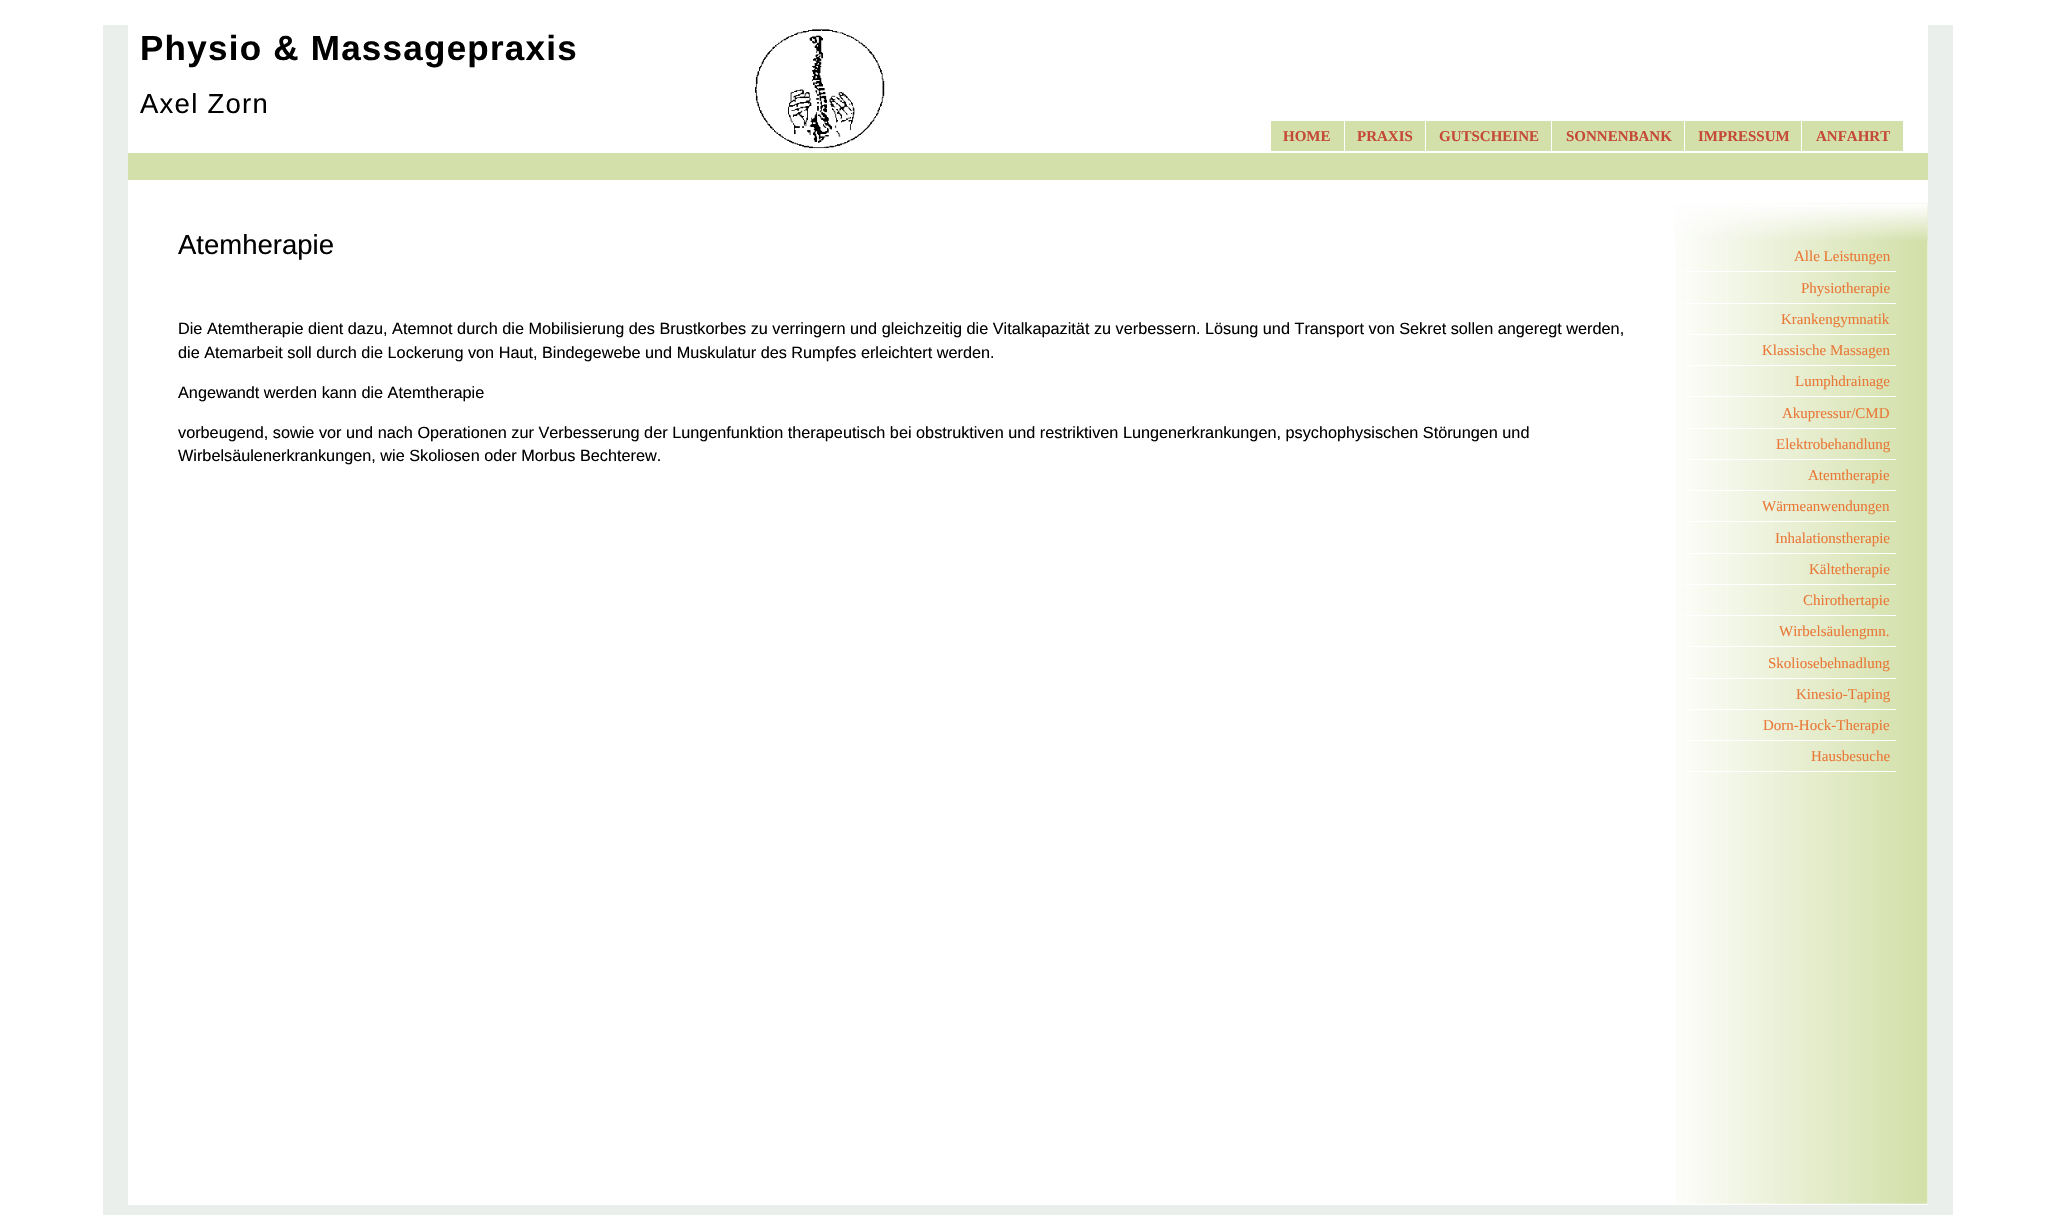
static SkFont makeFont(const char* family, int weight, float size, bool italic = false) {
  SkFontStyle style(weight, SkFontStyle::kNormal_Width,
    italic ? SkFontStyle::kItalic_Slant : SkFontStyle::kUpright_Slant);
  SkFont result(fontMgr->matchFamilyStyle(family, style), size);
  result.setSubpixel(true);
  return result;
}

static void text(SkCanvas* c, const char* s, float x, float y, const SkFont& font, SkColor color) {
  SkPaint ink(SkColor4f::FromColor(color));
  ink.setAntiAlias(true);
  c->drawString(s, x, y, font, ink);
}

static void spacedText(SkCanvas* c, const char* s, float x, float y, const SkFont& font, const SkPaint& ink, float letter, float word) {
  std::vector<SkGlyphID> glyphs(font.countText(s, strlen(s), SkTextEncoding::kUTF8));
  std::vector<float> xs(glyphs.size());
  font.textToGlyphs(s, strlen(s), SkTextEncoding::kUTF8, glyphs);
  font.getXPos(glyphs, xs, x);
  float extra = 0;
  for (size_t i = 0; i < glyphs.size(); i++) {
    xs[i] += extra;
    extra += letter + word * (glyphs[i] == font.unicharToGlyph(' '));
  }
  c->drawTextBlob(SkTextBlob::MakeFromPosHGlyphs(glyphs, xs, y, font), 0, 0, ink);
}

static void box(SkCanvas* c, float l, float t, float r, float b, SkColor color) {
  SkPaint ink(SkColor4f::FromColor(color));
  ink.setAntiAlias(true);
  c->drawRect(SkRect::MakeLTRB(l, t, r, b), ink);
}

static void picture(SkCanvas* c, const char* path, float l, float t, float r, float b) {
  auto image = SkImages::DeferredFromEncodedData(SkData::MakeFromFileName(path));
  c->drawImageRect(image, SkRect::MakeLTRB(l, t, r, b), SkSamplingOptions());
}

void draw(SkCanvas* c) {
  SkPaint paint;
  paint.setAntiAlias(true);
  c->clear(0xffffffff);
  box(c, 103, 25, 128, 1215, 0xffebefeb);
  SkFont face1 = makeFont("Liberation Sans", 700, 35);
  paint.setColor(0xff000000);
  spacedText(c, "Physio & Massagepraxis", 140, 60, face1, paint, 1.25f, 0);
  SkFont face2 = makeFont("Liberation Sans", 400, 27.5f);
  spacedText(c, "Axel Zorn", 140, 113, face2, paint, 1.25f, 0);
  picture(c, "img_01.png", 755, 29, 885, 149);
  box(c, 1271, 121, 1344, 151, 0xffd3e0aa);
  SkFont face3 = makeFont("Liberation Serif", 700, 15);
  text(c, "HOME", 1283, 141, face3, 0xffc44937);
  box(c, 1345, 121, 1425, 151, 0xffd3e0aa);
  text(c, "PRAXIS", 1357, 141, face3, 0xffc44937);
  box(c, 1426, 121, 1551, 151, 0xffd3e0aa);
  text(c, "GUTSCHEINE", 1439, 141, face3, 0xffc44937);
  box(c, 1552, 121, 1684, 151, 0xffd3e0aa);
  text(c, "SONNENBANK", 1566, 141, face3, 0xffc44937);
  box(c, 1685, 121, 1801, 151, 0xffd3e0aa);
  text(c, "IMPRESSUM", 1698, 141, face3, 0xffc44937);
  box(c, 1802, 121, 1903, 151, 0xffd3e0aa);
  text(c, "ANFAHRT", 1816, 141, face3, 0xffc44937);
  box(c, 128, 153, 1928, 180, 0xffd3e0aa);
  text(c, "Atemherapie", 178, 254, face2, 0xff000000);
  SkFont face4 = makeFont("Liberation Sans", 400, 16.25f);
  text(c, "Die Atemtherapie dient dazu, Atemnot durch die Mobilisierung des Brustkorbes zu verringern und gleichzeitig die Vitalkapazität zu verbessern. Lösung und Transport von Sekret sollen angeregt werden,", 178, 334, face4, 0xff000000);
  text(c, "die Atemarbeit soll durch die Lockerung von Haut, Bindegewebe und Muskulatur des Rumpfes erleichtert werden.", 178, 358, face4, 0xff000000);
  text(c, "Angewandt werden kann die Atemtherapie", 178, 398, face4, 0xff000000);
  text(c, "vorbeugend, sowie vor und nach Operationen zur Verbesserung der Lungenfunktion therapeutisch bei obstruktiven und restriktiven Lungenerkrankungen, psychophysischen Störungen und", 178, 438, face4, 0xff000000);
  text(c, "Wirbelsäulenerkrankungen, wie Skoliosen oder Morbus Bechterew.", 178, 461, face4, 0xff000000);
  picture(c, "img_02.png", 1676, 203, 1928, 1204);
  picture(c, "img_03.png", 1674, 203, 1928, 242);
  box(c, 1684, 271, 1896, 272, 0xffffffff);
  SkFont face5 = makeFont("Liberation Serif", 400, 15);
  text(c, "Alle Leistungen", 1794, 261, face5, 0xffe97836);
  box(c, 1684, 303, 1896, 304, 0xffffffff);
  text(c, "Physiotherapie", 1801, 293, face5, 0xffe97836);
  box(c, 1684, 334, 1896, 335, 0xffffffff);
  text(c, "Krankengymnatik", 1781, 324, face5, 0xffe97836);
  box(c, 1684, 365, 1896, 366, 0xffffffff);
  text(c, "Klassische Massagen", 1762, 355, face5, 0xffe97836);
  box(c, 1684, 396, 1896, 397, 0xffffffff);
  text(c, "Lumphdrainage", 1795, 386, face5, 0xffe97836);
  box(c, 1684, 428, 1896, 429, 0xffffffff);
  text(c, "Akupressur/CMD", 1782, 418, face5, 0xffe97836);
  box(c, 1684, 459, 1896, 460, 0xffffffff);
  text(c, "Elektrobehandlung", 1776, 449, face5, 0xffe97836);
  box(c, 1684, 490, 1896, 491, 0xffffffff);
  text(c, "Atemtherapie", 1808, 480, face5, 0xffe97836);
  box(c, 1684, 521, 1896, 522, 0xffffffff);
  text(c, "Wärmeanwendungen", 1762, 511, face5, 0xffe97836);
  box(c, 1684, 553, 1896, 554, 0xffffffff);
  text(c, "Inhalationstherapie", 1775, 543, face5, 0xffe97836);
  box(c, 1684, 584, 1896, 585, 0xffffffff);
  text(c, "Kältetherapie", 1809, 574, face5, 0xffe97836);
  box(c, 1684, 615, 1896, 616, 0xffffffff);
  text(c, "Chirothertapie", 1803, 605, face5, 0xffe97836);
  box(c, 1684, 646, 1896, 647, 0xffffffff);
  text(c, "Wirbelsäulengmn.", 1779, 636, face5, 0xffe97836);
  box(c, 1684, 678, 1896, 679, 0xffffffff);
  text(c, "Skoliosebehnadlung", 1768, 668, face5, 0xffe97836);
  box(c, 1684, 709, 1896, 710, 0xffffffff);
  text(c, "Kinesio-Taping", 1796, 699, face5, 0xffe97836);
  box(c, 1684, 740, 1896, 741, 0xffffffff);
  text(c, "Dorn-Hock-Therapie", 1763, 730, face5, 0xffe97836);
  box(c, 1684, 771, 1896, 772, 0xffffffff);
  text(c, "Hausbesuche", 1811, 761, face5, 0xffe97836);
  box(c, 128, 1205, 1928, 1215, 0xffebefeb);
  box(c, 1928, 25, 1953, 1215, 0xffebefeb);
}
